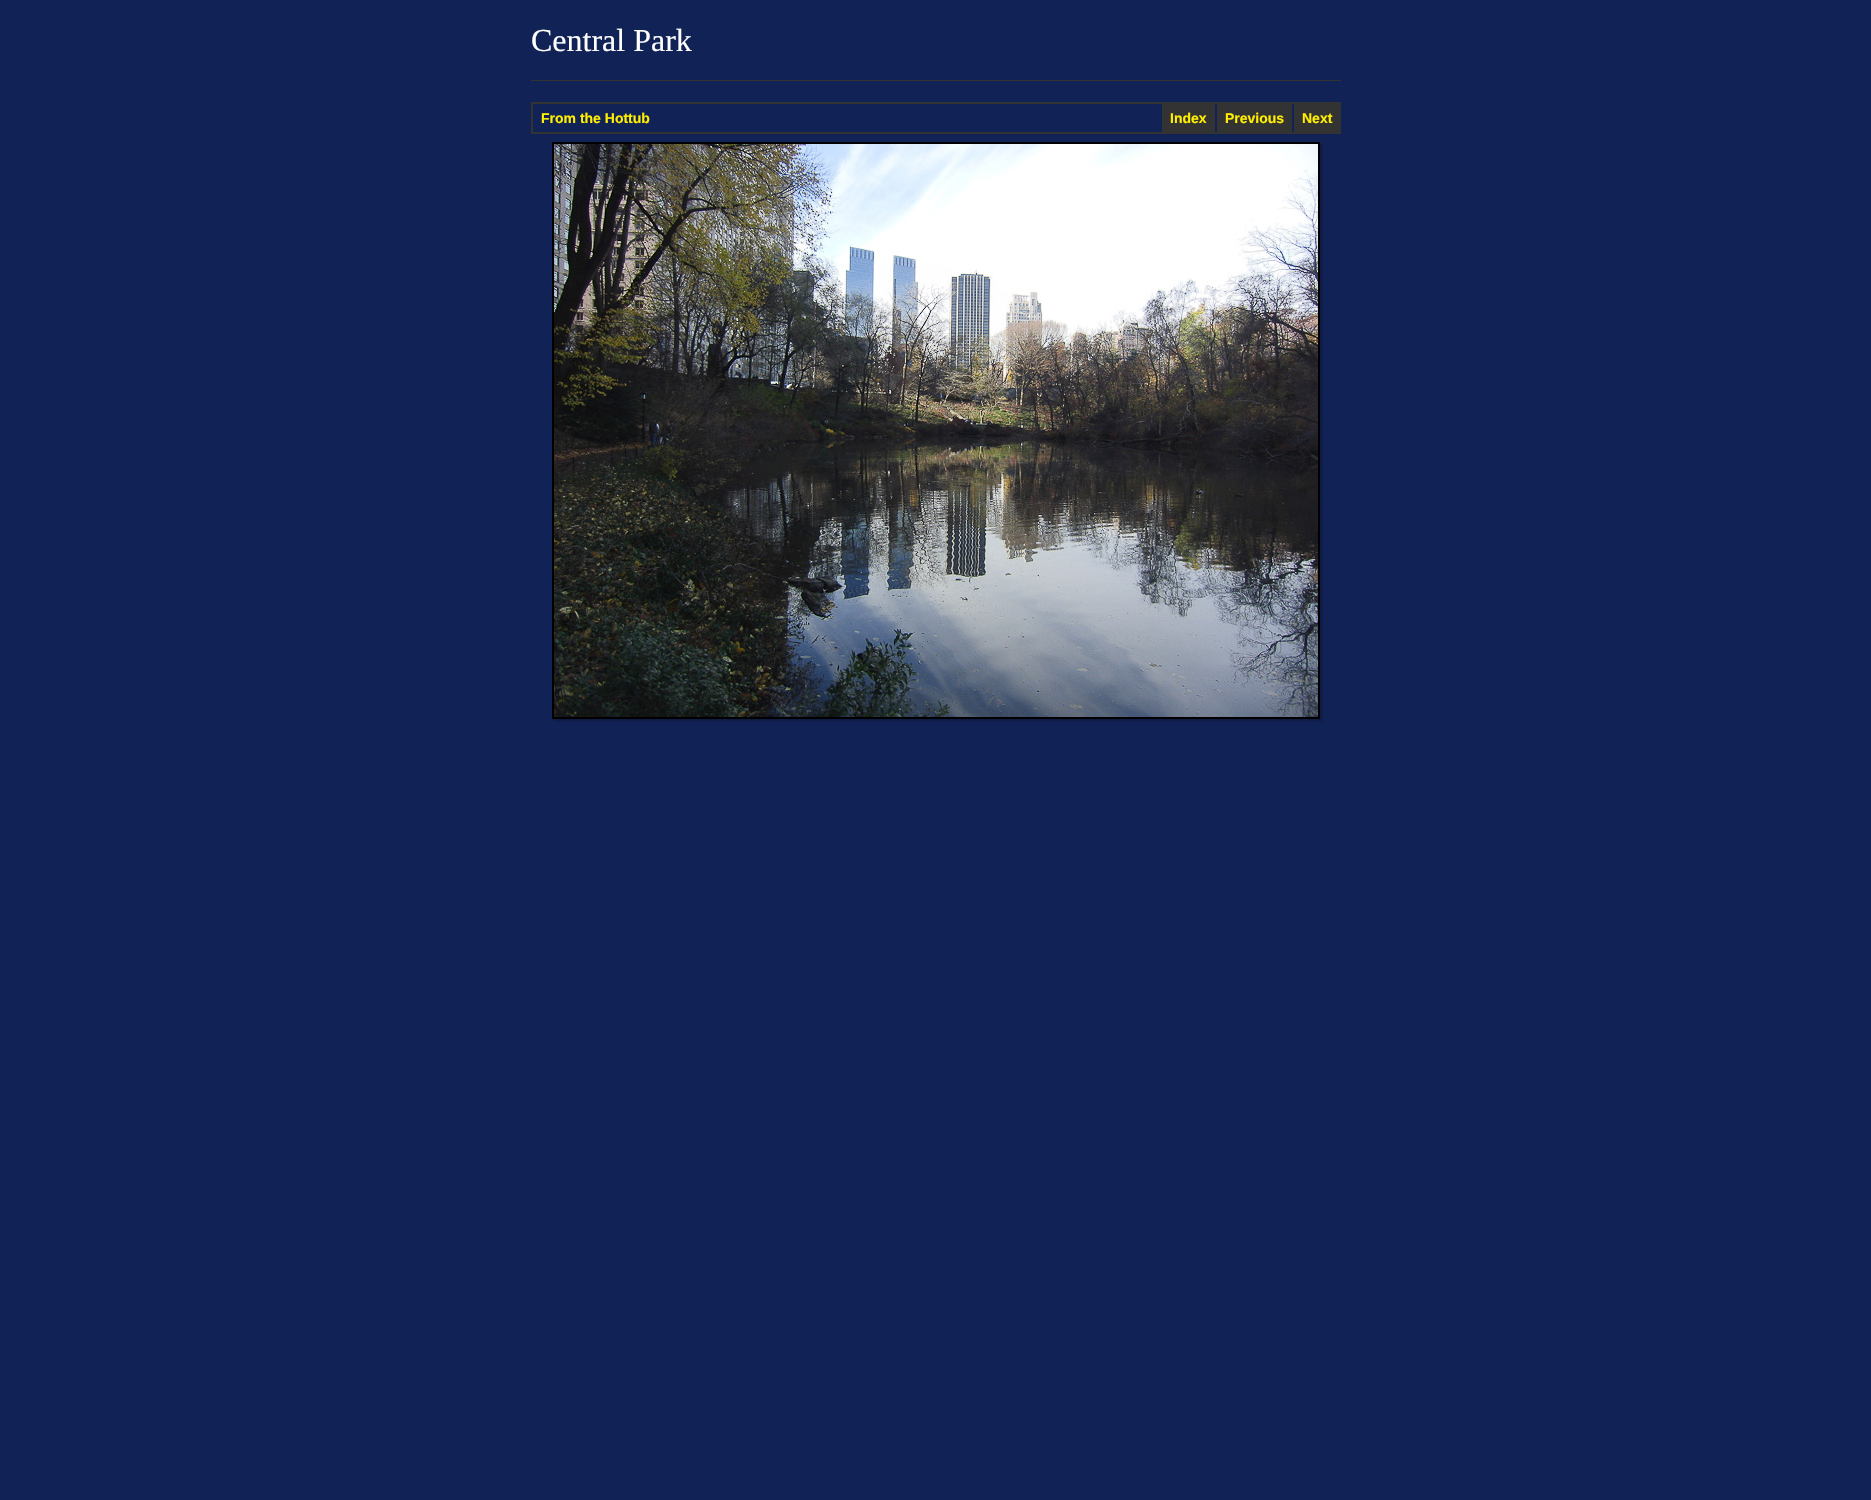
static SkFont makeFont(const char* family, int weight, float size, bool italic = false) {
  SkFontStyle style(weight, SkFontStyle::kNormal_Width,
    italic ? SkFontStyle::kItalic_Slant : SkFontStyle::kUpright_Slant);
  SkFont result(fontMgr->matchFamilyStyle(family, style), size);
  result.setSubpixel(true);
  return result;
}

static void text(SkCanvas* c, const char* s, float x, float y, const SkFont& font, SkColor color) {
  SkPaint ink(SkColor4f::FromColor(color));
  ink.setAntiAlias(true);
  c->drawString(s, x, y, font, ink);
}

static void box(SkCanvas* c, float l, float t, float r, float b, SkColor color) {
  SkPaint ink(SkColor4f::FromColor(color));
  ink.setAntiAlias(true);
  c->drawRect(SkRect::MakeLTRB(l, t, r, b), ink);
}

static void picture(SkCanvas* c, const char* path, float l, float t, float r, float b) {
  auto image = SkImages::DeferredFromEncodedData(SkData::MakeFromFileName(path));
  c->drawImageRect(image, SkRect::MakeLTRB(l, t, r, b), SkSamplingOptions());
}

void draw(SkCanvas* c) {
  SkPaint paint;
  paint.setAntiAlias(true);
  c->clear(0xff112256);
  SkFont face1 = makeFont("Liberation Serif", 400, 32);
  text(c, "Central Park", 531, 51, face1, 0xffffffff);
  box(c, 531, 80, 1341, 81, 0xff333333);
  paint.setStyle(SkPaint::kStroke_Style);
  paint.setStrokeWidth(2);
  paint.setColor(0xff333333);
  c->drawRect(SkRect::MakeLTRB(532, 103, 1340, 133), paint);
  SkFont face2 = makeFont("Liberation Sans", 700, 14);
  text(c, "From the Hottub", 541, 123, face2, 0xffffee00);
  box(c, 1162, 104, 1215, 132, 0xff333333);
  text(c, "Index", 1170, 123, face2, 0xffffee00);
  box(c, 1217, 104, 1292, 132, 0xff333333);
  text(c, "Previous", 1225, 123, face2, 0xffffee00);
  box(c, 1294, 104, 1339, 132, 0xff333333);
  text(c, "Next", 1302, 123, face2, 0xffffee00);
  paint.setStyle(SkPaint::kFill_Style);
  paint.setColor(0x40000000);
  paint.setMaskFilter(SkMaskFilter::MakeBlur(kNormal_SkBlurStyle, 1));
  c->drawRect(SkRect::MakeLTRB(554, 144, 1322, 721), paint);
  paint.setMaskFilter(nullptr);
  paint.setStyle(SkPaint::kStroke_Style);
  paint.setColor(0xff000000);
  c->drawRect(SkRect::MakeLTRB(553, 143, 1319, 718), paint);
  picture(c, "img_01.png", 554, 144, 1318, 717);
}
